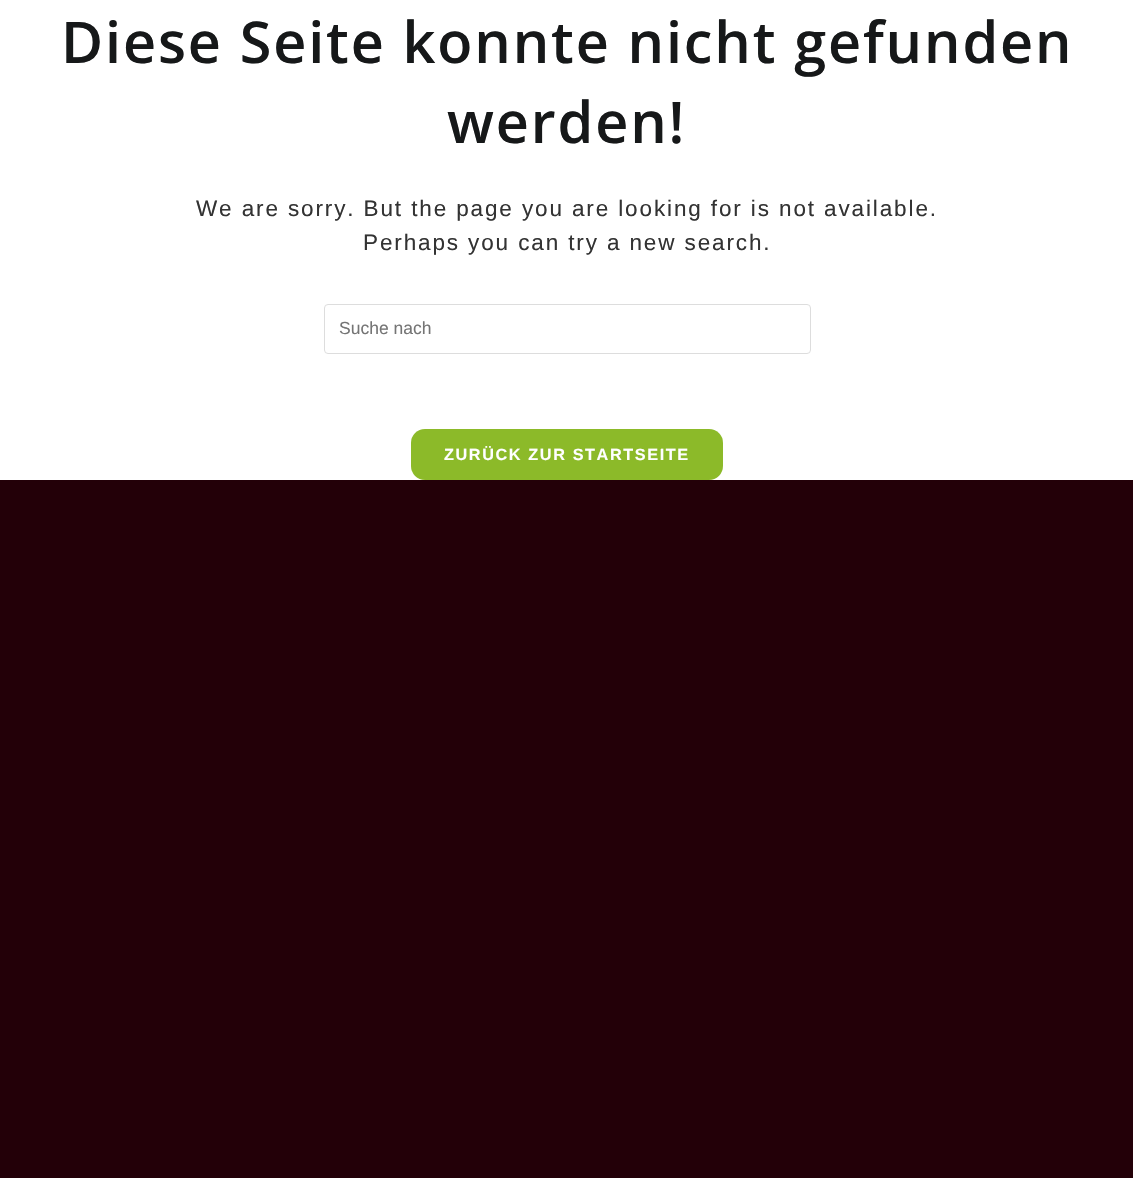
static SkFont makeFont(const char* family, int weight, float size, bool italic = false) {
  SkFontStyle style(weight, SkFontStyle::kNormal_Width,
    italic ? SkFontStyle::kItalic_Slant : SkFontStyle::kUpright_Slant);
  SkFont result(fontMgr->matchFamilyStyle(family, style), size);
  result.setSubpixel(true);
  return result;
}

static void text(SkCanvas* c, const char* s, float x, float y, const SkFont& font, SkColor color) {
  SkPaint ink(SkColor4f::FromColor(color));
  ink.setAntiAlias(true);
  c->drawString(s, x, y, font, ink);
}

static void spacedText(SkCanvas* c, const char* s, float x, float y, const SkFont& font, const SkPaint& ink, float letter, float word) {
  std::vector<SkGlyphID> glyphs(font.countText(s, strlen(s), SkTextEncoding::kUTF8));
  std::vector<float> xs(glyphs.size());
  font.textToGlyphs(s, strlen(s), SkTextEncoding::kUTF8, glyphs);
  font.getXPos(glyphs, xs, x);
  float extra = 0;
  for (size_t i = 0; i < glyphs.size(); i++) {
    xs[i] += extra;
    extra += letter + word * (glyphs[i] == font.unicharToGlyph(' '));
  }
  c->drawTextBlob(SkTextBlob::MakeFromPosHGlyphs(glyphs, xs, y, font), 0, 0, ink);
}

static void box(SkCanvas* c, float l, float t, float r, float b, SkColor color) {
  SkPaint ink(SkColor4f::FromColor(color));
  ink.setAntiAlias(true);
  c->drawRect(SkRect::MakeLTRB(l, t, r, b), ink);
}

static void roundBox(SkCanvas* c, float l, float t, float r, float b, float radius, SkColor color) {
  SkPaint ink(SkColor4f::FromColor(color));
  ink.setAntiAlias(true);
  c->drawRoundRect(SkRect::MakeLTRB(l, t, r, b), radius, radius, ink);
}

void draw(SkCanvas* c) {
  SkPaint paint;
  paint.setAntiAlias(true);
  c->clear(0xff230008);
  box(c, 0, 0, 1133, 480, 0xffffffff);
  SkFont face1 = makeFont("Open Sans", 600, 57.5f);
  paint.setColor(0xff161819);
  spacedText(c, "Diese Seite konnte nicht gefunden", 61, 63, face1, paint, 1.88f, 0);
  spacedText(c, "werden!", 447, 143, face1, paint, 1.88f, 0);
  SkFont face2 = makeFont("Liberation Sans", 400, 22.5f);
  paint.setColor(0xff333333);
  spacedText(c, "We are sorry. But the page you are looking for is not available.", 196, 216, face2, paint, 1.88f, 0);
  spacedText(c, "Perhaps you can try a new search.", 363, 250, face2, paint, 1.88f, 0);
  paint.setStyle(SkPaint::kStroke_Style);
  paint.setStrokeWidth(1);
  paint.setColor(0xffdddddd);
  c->drawRoundRect(SkRect::MakeLTRB(324.5f, 304.5f, 810.5f, 353.5f), 3.5f, 3.5f, paint);
  SkFont face3 = makeFont("Liberation Sans", 400, 17.5f);
  text(c, "Suche nach", 339, 334, face3, 0xff757575);
  roundBox(c, 411, 429, 723, 480, 14, 0xff8cba29);
  SkFont face4 = makeFont("Liberation Sans", 700, 16.25f);
  paint.setStyle(SkPaint::kFill_Style);
  paint.setColor(0xffffffff);
  spacedText(c, "ZURÜCK ZUR STARTSEITE", 444, 460, face4, paint, 1.6f, 0);
}
